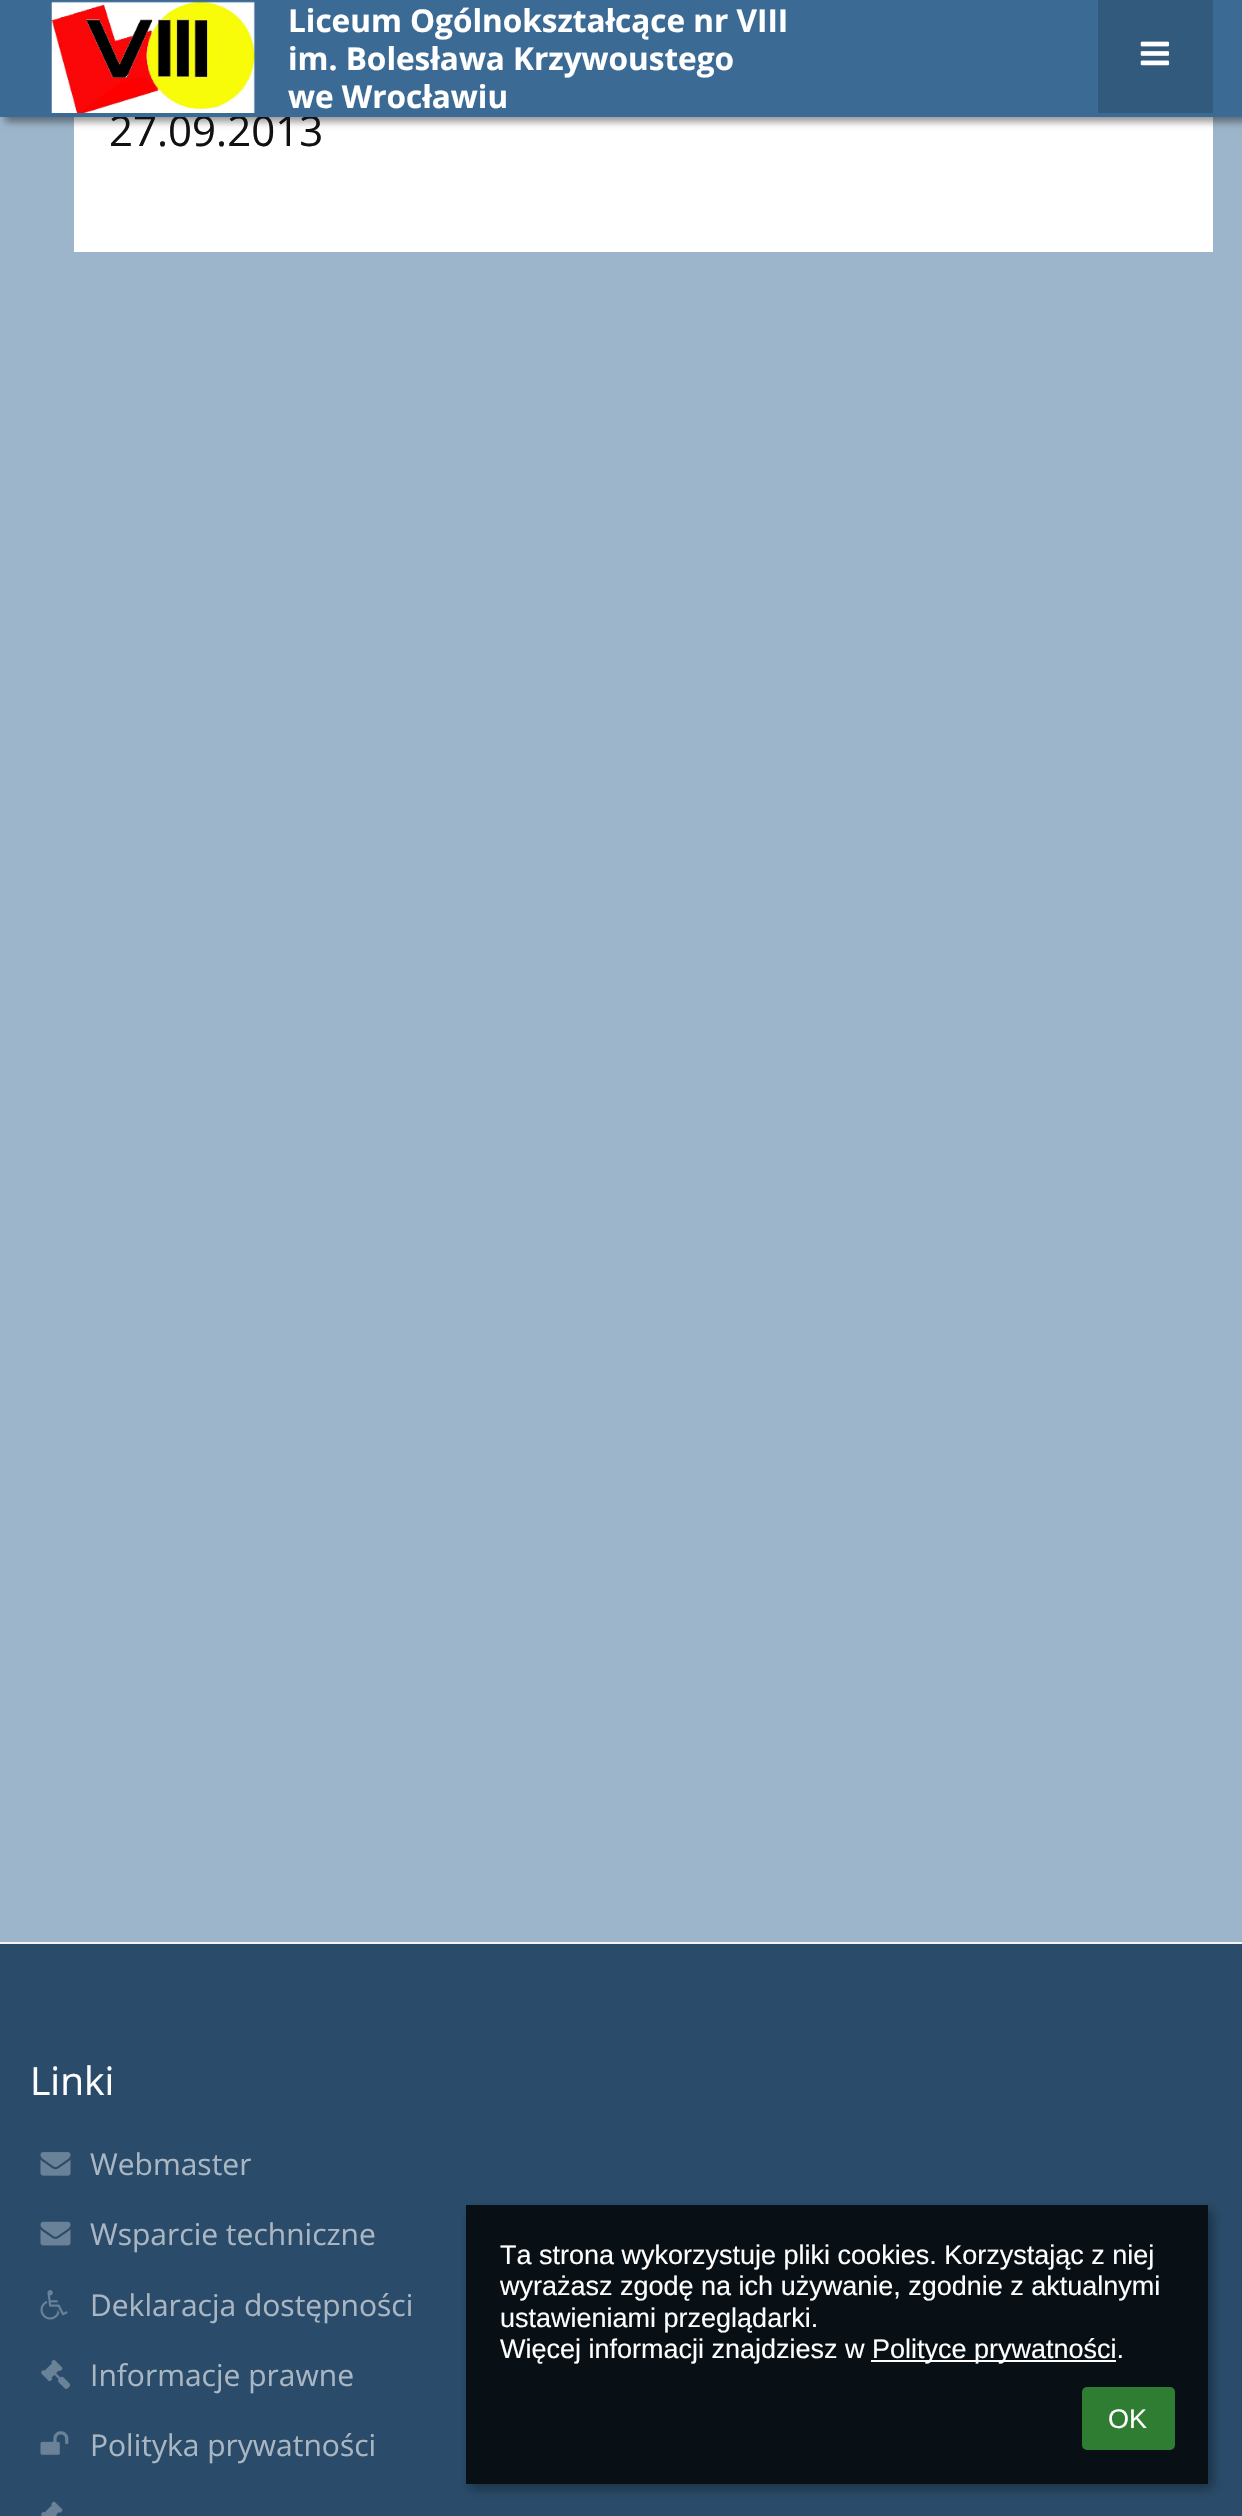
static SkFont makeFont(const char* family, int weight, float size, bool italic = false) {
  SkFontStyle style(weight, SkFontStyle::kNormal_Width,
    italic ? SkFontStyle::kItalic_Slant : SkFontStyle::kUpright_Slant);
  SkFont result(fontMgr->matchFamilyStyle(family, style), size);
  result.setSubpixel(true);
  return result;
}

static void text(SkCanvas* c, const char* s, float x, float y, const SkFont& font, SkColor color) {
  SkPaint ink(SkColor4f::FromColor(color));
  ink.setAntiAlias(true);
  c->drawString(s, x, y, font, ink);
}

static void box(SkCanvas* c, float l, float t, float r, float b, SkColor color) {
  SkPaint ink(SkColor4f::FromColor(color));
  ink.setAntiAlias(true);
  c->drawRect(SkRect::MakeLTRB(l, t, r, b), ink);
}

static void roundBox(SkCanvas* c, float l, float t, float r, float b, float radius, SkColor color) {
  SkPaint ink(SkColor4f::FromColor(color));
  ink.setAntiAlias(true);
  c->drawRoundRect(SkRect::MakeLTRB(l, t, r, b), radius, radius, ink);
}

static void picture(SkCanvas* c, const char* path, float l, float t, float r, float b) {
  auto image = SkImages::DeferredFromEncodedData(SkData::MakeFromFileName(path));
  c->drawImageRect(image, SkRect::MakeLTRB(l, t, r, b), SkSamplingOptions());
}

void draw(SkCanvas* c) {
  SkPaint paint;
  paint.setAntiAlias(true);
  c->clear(0xff9db5ca);
  box(c, 74, 117, 1213, 252, 0xffffffff);
  paint.setColor(0x66000000);
  paint.setMaskFilter(SkMaskFilter::MakeBlur(kNormal_SkBlurStyle, 3.5f));
  c->drawRect(SkRect::MakeLTRB(5, 5, 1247, 122), paint);
  paint.setMaskFilter(nullptr);
  SkFont face1 = makeFont("Open Sans", 400, 42);
  text(c, "27.09.2013", 109, 146, face1, 0xff111111);
  box(c, 0, 0, 1242, 117, 0xff3b6a94);
  picture(c, "img_01.png", 51, 1, 255, 113);
  SkFont face2 = makeFont("Open Sans", 700, 31.5f);
  text(c, "Liceum Ogólnokształcące nr VIII", 288, 32, face2, 0xffffffff);
  text(c, "im. Bolesława Krzywoustego", 288, 70, face2, 0xffffffff);
  text(c, "we Wrocławiu", 288, 108, face2, 0xffffffff);
  box(c, 1098, 0, 1213, 113, 0xff325a7d);
  picture(c, "img_02.png", 1140, 41, 1170, 66);
  box(c, 0, 1944, 1242, 2516, 0xff2a4c6a);
  box(c, 0, 1942, 1242, 1944, 0xfff3f3f3);
  SkFont face3 = makeFont("Open Sans", 400, 39);
  text(c, "Linki", 30, 2095, face3, 0xffffffff);
  picture(c, "img_03.png", 40, 2152, 71, 2176);
  SkFont face4 = makeFont("Open Sans", 400, 30);
  text(c, "Webmaster", 90, 2175, face4, 0xffaab7c3);
  picture(c, "img_04.png", 40, 2221, 71, 2246);
  text(c, "Wsparcie techniczne", 90, 2245, face4, 0xffaab7c3);
  picture(c, "img_05.png", 40, 2290, 68, 2320);
  text(c, "Deklaracja dostępności", 90, 2316, face4, 0xffaab7c3);
  picture(c, "img_06.png", 41, 2360, 70, 2389);
  text(c, "Informacje prawne", 90, 2386, face4, 0xffaab7c3);
  picture(c, "img_07.png", 40, 2431, 69, 2455);
  text(c, "Polityka prywatności", 90, 2456, face4, 0xffaab7c3);
  picture(c, "img_08.png", 41, 2501, 63, 2516);
  paint.setColor(0x59000000);
  paint.setMaskFilter(SkMaskFilter::MakeBlur(kNormal_SkBlurStyle, 5.5f));
  c->drawRect(SkRect::MakeLTRB(470, 2210, 1213, 2489), paint);
  paint.setMaskFilter(nullptr);
  box(c, 466, 2205, 1208, 2484, 0xff080f15);
  SkFont face5 = makeFont("Liberation Sans", 400, 27);
  text(c, "Ta strona wykorzystuje pliki cookies. Korzystając z niej", 500, 2264, face5, 0xffffffff);
  text(c, "wyrażasz zgodę na ich używanie, zgodnie z aktualnymi", 500, 2295, face5, 0xffffffff);
  text(c, "ustawieniami przeglądarki.", 500, 2327, face5, 0xffffffff);
  text(c, "Więcej informacji znajdziesz w", 500, 2358, face5, 0xffffffff);
  box(c, 871, 2360, 1116, 2362, 0xffffffff);
  text(c, "Polityce prywatności.", 872, 2358, face5, 0xffffffff);
  roundBox(c, 1082, 2387, 1175, 2450, 5, 0xff2e7d32);
  text(c, "OK", 1108, 2428, face5, 0xffffffff);
}
